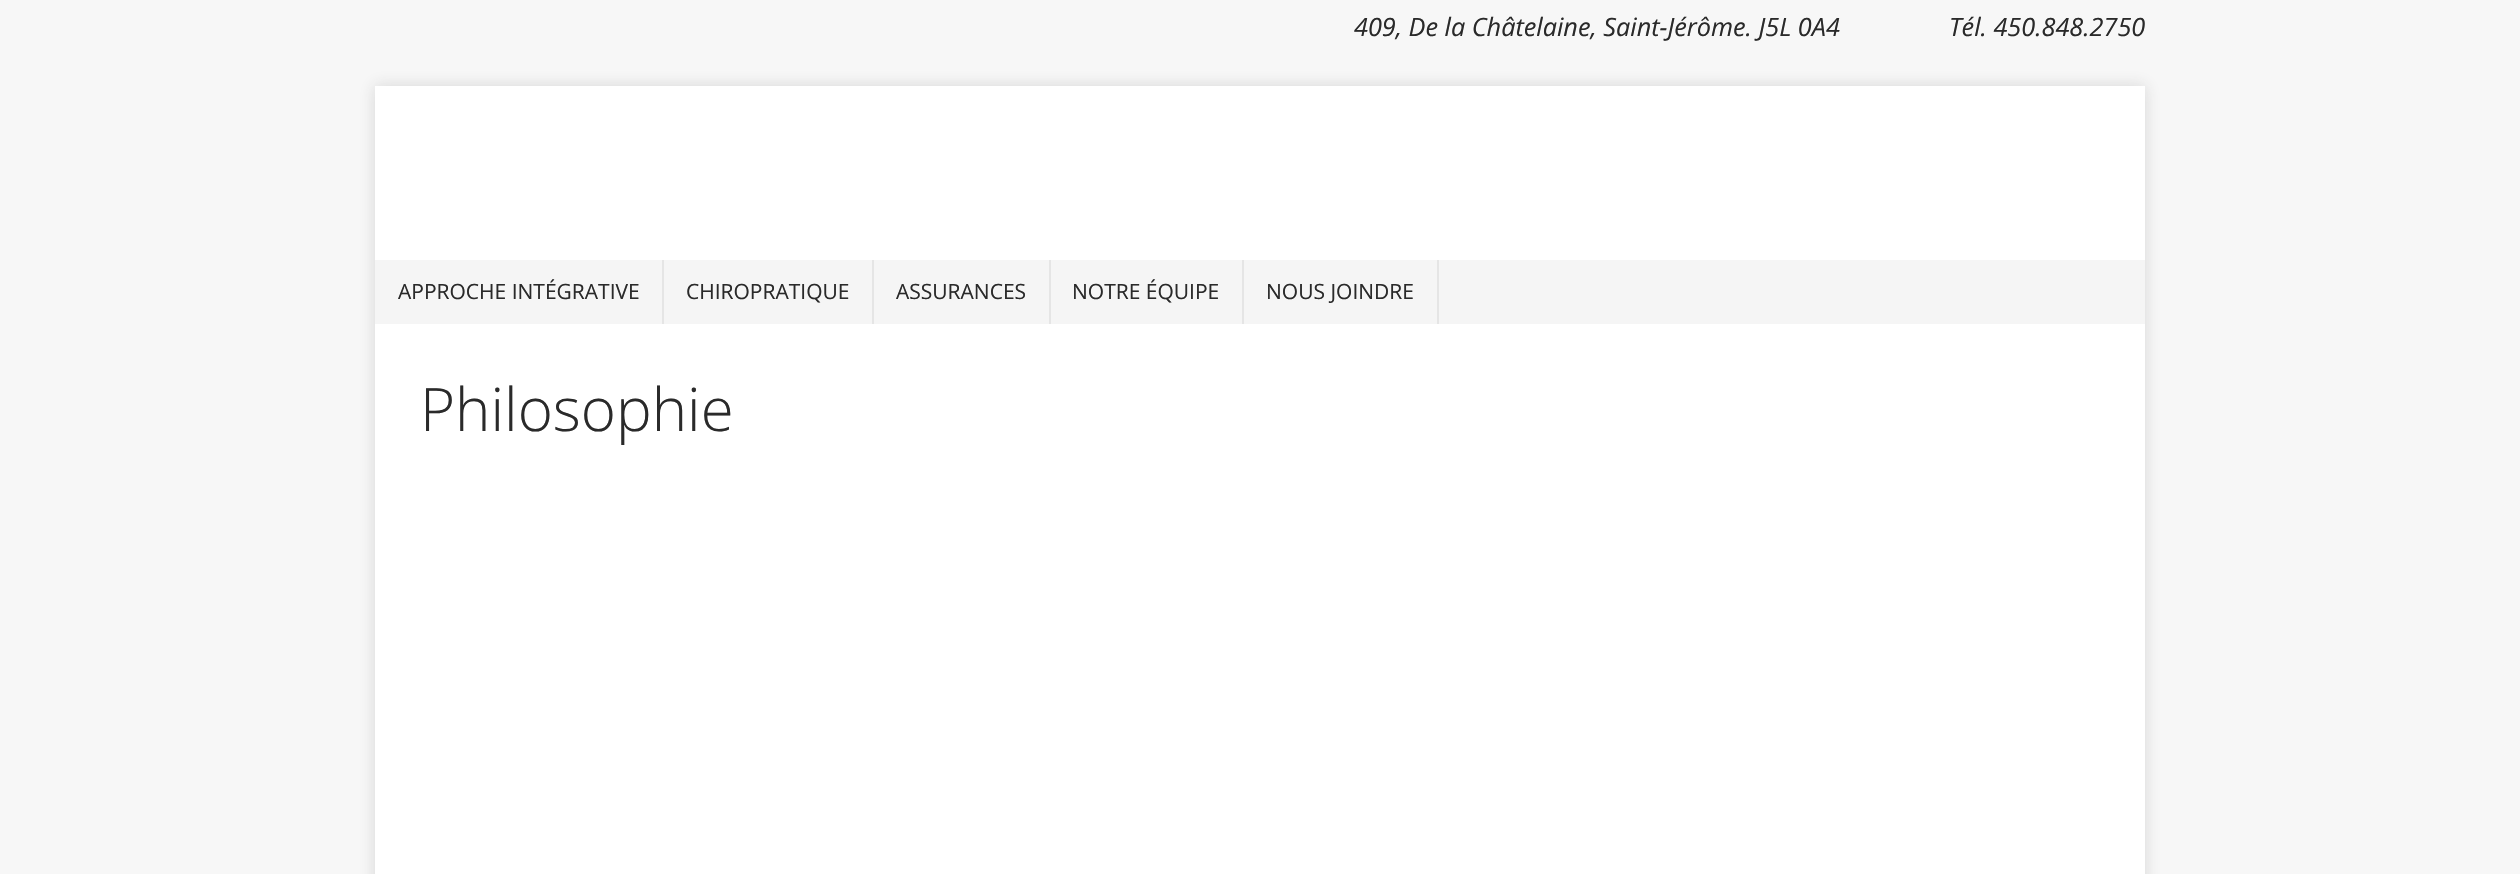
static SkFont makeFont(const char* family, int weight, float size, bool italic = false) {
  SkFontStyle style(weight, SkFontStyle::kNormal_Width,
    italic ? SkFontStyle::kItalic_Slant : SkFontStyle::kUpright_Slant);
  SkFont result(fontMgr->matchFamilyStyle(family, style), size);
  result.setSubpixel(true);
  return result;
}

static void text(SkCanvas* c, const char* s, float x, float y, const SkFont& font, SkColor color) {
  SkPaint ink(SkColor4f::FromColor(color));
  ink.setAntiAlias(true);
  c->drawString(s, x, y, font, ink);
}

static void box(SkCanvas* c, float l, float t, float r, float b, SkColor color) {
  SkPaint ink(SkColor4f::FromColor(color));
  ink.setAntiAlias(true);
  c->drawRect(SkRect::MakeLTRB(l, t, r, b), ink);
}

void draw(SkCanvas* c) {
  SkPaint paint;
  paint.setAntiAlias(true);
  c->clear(0xfff7f7f7);
  SkFont face1 = makeFont("Open Sans", 400, 25.25f, true);
  text(c, "409, De la Châtelaine, Saint-Jérôme. J5L 0A4", 1354, 36, face1, 0xff2a2a2a);
  text(c, "Tél. 450.848.2750", 1949, 36, face1, 0xff2a2a2a);
  paint.setColor(0x2b323232);
  paint.setMaskFilter(SkMaskFilter::MakeBlur(kNormal_SkBlurStyle, 7.5f));
  c->drawRect(SkRect::MakeLTRB(375, 86, 2145, 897), paint);
  paint.setMaskFilter(nullptr);
  box(c, 375, 86, 2145, 260, 0xffffffff);
  box(c, 375, 260, 2145, 324, 0xfff5f5f5);
  box(c, 375, 324, 2145, 874, 0xffffffff);
  box(c, 662, 260, 664, 324, 0xffe5e5e5);
  SkFont face2 = makeFont("Open Sans", 400, 21);
  text(c, "APPROCHE INTÉGRATIVE", 398, 299, face2, 0xff2a2a2a);
  box(c, 872, 260, 874, 324, 0xffe5e5e5);
  text(c, "CHIROPRATIQUE", 686, 299, face2, 0xff2a2a2a);
  box(c, 1049, 260, 1051, 324, 0xffe5e5e5);
  text(c, "ASSURANCES", 896, 299, face2, 0xff2a2a2a);
  box(c, 1242, 260, 1244, 324, 0xffe5e5e5);
  text(c, "NOTRE ÉQUIPE", 1072, 299, face2, 0xff2a2a2a);
  box(c, 1437, 260, 1439, 324, 0xffe5e5e5);
  text(c, "NOUS JOINDRE", 1266, 299, face2, 0xff2a2a2a);
  SkFont face3 = makeFont("Open Sans", 300, 60);
  text(c, "Philosophie", 420, 431, face3, 0xff2a2a2a);
}
